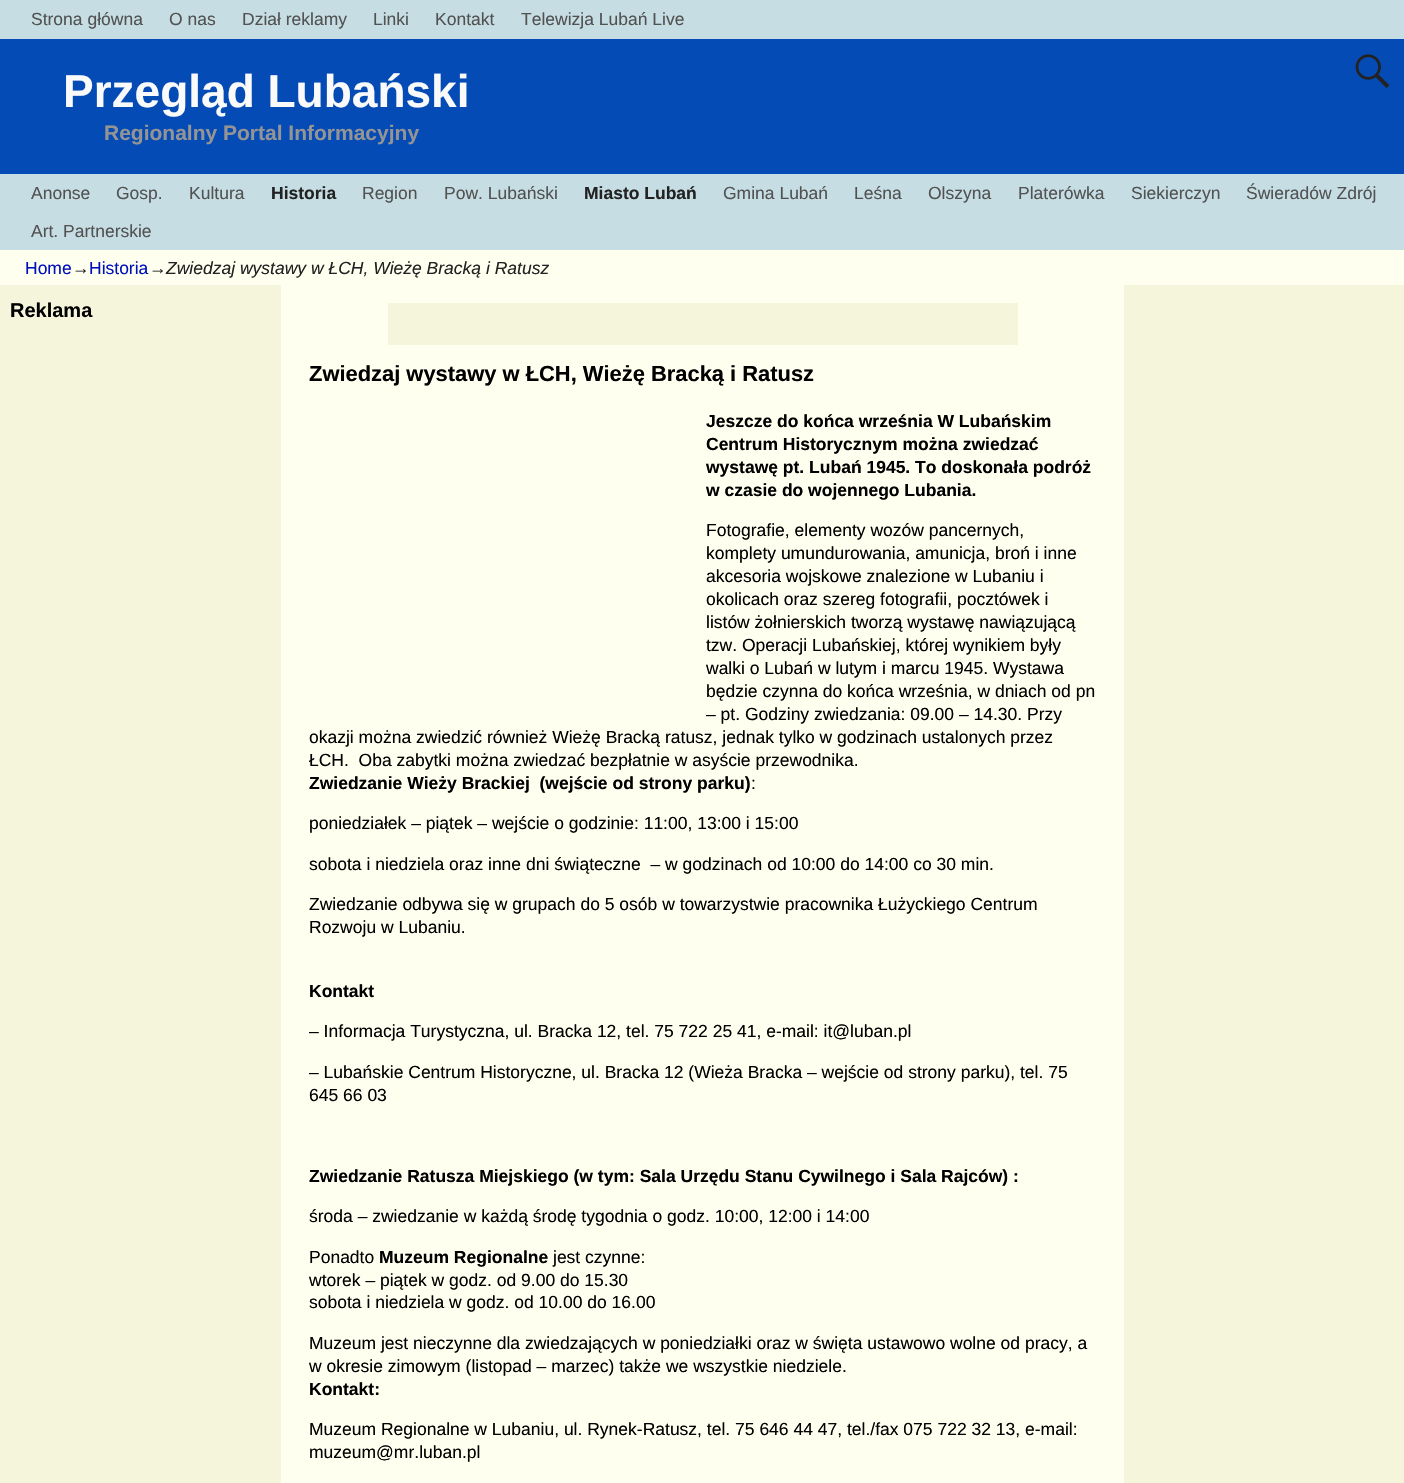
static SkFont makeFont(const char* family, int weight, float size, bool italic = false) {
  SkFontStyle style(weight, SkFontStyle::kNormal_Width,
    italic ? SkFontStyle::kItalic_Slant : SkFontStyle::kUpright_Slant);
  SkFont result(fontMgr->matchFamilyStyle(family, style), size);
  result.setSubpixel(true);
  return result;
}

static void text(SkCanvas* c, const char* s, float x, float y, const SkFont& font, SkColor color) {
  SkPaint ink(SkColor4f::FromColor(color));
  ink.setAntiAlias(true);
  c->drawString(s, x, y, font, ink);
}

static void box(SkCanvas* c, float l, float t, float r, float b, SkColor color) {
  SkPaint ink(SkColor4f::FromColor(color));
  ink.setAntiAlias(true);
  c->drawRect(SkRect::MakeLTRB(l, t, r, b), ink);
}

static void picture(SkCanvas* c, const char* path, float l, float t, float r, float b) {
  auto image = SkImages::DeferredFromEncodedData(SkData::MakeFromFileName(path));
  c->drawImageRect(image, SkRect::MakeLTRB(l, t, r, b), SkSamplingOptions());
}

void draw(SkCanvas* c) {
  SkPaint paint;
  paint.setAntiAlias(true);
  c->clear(0xff044bb5);
  box(c, 0, 0, 1404, 39, 0xffc5dde3);
  SkFont face1 = makeFont("Liberation Sans", 400, 17.5f);
  text(c, "Strona główna", 31, 25, face1, 0xff525252);
  text(c, "O nas", 169, 25, face1, 0xff525252);
  text(c, "Dział reklamy", 242, 25, face1, 0xff525252);
  text(c, "Linki", 373, 25, face1, 0xff525252);
  text(c, "Kontakt", 435, 25, face1, 0xff525252);
  text(c, "Telewizja Lubań Live", 521, 25, face1, 0xff525252);
  SkFont face2 = makeFont("Liberation Sans", 700, 46);
  text(c, "Przegląd Lubański", 63, 107, face2, 0xfffafafa);
  picture(c, "img_01.png", 1355, 54, 1390, 88);
  SkFont face3 = makeFont("Liberation Sans", 700, 21);
  text(c, "Regionalny Portal Informacyjny", 104, 140, face3, 0xff949494);
  box(c, 0, 174, 1404, 250, 0xffc5dde3);
  text(c, "Anonse", 31, 199, face1, 0xff525252);
  text(c, "Gosp.", 116, 199, face1, 0xff525252);
  text(c, "Kultura", 189, 199, face1, 0xff525252);
  SkFont face4 = makeFont("Liberation Sans", 700, 17.5f);
  text(c, "Historia", 271, 199, face4, 0xff222222);
  text(c, "Region", 362, 199, face1, 0xff525252);
  text(c, "Pow. Lubański", 444, 199, face1, 0xff525252);
  text(c, "Miasto Lubań", 584, 199, face4, 0xff222222);
  text(c, "Gmina Lubań", 723, 199, face1, 0xff525252);
  text(c, "Leśna", 854, 199, face1, 0xff525252);
  text(c, "Olszyna", 928, 199, face1, 0xff525252);
  text(c, "Platerówka", 1018, 199, face1, 0xff525252);
  text(c, "Siekierczyn", 1131, 199, face1, 0xff525252);
  text(c, "Świeradów Zdrój", 1246, 199, face1, 0xff525252);
  text(c, "Art. Partnerskie", 31, 237, face1, 0xff525252);
  box(c, 0, 250, 1404, 1483, 0xfffffff0);
  text(c, "Home", 25, 274, face1, 0xff0011bb);
  text(c, "→", 72, 274, face1, 0xff222222);
  text(c, "Historia", 89, 274, face1, 0xff0011bb);
  text(c, "→", 149, 274, face1, 0xff222222);
  SkFont face5 = makeFont("Liberation Sans", 400, 17.5f, true);
  text(c, "Zwiedzaj wystawy w ŁCH, Wieżę Bracką i Ratusz", 166, 274, face5, 0xff222222);
  box(c, 0, 285, 281, 1483, 0xfff5f5dc);
  SkFont face6 = makeFont("Liberation Sans", 700, 20);
  text(c, "Reklama", 10, 317, face6, 0xff000000);
  box(c, 1124, 285, 1404, 1483, 0xfff5f5dc);
  box(c, 388, 303, 1018, 345, 0xfff5f5dc);
  SkFont face7 = makeFont("Liberation Sans", 700, 21.9f);
  text(c, "Zwiedzaj wystawy w ŁCH, Wieżę Bracką i Ratusz", 309, 381, face7, 0xff000000);
  text(c, "Jeszcze do końca września W Lubańskim", 706, 427, face4, 0xff000000);
  text(c, "Centrum Historycznym można zwiedzać", 706, 450, face4, 0xff000000);
  text(c, "wystawę pt. Lubań 1945. To doskonała podróż", 706, 473, face4, 0xff000000);
  text(c, "w czasie do wojennego Lubania.", 706, 496, face4, 0xff000000);
  text(c, "Fotografie, elementy wozów pancernych,", 706, 536, face1, 0xff000000);
  text(c, "komplety umundurowania, amunicja, broń i inne", 706, 559, face1, 0xff000000);
  text(c, "akcesoria wojskowe znalezione w Lubaniu i", 706, 582, face1, 0xff000000);
  text(c, "okolicach oraz szereg fotografii, pocztówek i", 706, 605, face1, 0xff000000);
  text(c, "listów żołnierskich tworzą wystawę nawiązującą", 706, 628, face1, 0xff000000);
  text(c, "tzw. Operacji Lubańskiej, której wynikiem były", 706, 651, face1, 0xff000000);
  text(c, "walki o Lubań w lutym i marcu 1945. Wystawa", 706, 674, face1, 0xff000000);
  text(c, "będzie czynna do końca września, w dniach od pn", 706, 697, face1, 0xff000000);
  text(c, "– pt. Godziny zwiedzania: 09.00 – 14.30. Przy", 706, 720, face1, 0xff000000);
  text(c, "okazji można zwiedzić również Wieżę Bracką ratusz, jednak tylko w godzinach ustalonych przez", 309, 743, face1, 0xff000000);
  text(c, "ŁCH.  Oba zabytki można zwiedzać bezpłatnie w asyście przewodnika.", 309, 766, face1, 0xff000000);
  text(c, "Zwiedzanie Wieży Brackiej  (wejście od strony parku)", 309, 789, face4, 0xff000000);
  text(c, ":", 751, 789, face1, 0xff000000);
  text(c, "poniedziałek – piątek – wejście o godzinie: 11:00, 13:00 i 15:00", 309, 829, face1, 0xff000000);
  text(c, "sobota i niedziela oraz inne dni świąteczne  – w godzinach od 10:00 do 14:00 co 30 min.", 309, 870, face1, 0xff000000);
  text(c, "Zwiedzanie odbywa się w grupach do 5 osób w towarzystwie pracownika Łużyckiego Centrum", 309, 910, face1, 0xff000000);
  text(c, "Rozwoju w Lubaniu.", 309, 933, face1, 0xff000000);
  text(c, "Kontakt", 309, 997, face4, 0xff000000);
  text(c, "– Informacja Turystyczna, ul. Bracka 12, tel. 75 722 25 41, e-mail: it@luban.pl", 309, 1037, face1, 0xff000000);
  text(c, "– Lubańskie Centrum Historyczne, ul. Bracka 12 (Wieża Bracka – wejście od strony parku), tel. 75", 309, 1078, face1, 0xff000000);
  text(c, "645 66 03", 309, 1101, face1, 0xff000000);
  text(c, "Zwiedzanie Ratusza Miejskiego (w tym: Sala Urzędu Stanu Cywilnego i Sala Rajców) :", 309, 1182, face4, 0xff000000);
  text(c, "środa – zwiedzanie w każdą środę tygodnia o godz. 10:00, 12:00 i 14:00", 309, 1222, face1, 0xff000000);
  text(c, "Ponadto", 309, 1263, face1, 0xff000000);
  text(c, "Muzeum Regionalne", 379, 1263, face4, 0xff000000);
  text(c, "jest czynne:", 553, 1263, face1, 0xff000000);
  text(c, "wtorek – piątek w godz. od 9.00 do 15.30", 309, 1286, face1, 0xff000000);
  text(c, "sobota i niedziela w godz. od 10.00 do 16.00", 309, 1308, face1, 0xff000000);
  text(c, "Muzeum jest nieczynne dla zwiedzających w poniedziałki oraz w święta ustawowo wolne od pracy, a", 309, 1349, face1, 0xff000000);
  text(c, "w okresie zimowym (listopad – marzec) także we wszystkie niedziele.", 309, 1372, face1, 0xff000000);
  text(c, "Kontakt:", 309, 1395, face4, 0xff000000);
  text(c, "Muzeum Regionalne w Lubaniu, ul. Rynek-Ratusz, tel. 75 646 44 47, tel./fax 075 722 32 13, e-mail:", 309, 1435, face1, 0xff000000);
  text(c, "muzeum@mr.luban.pl", 309, 1458, face1, 0xff000000);
}
